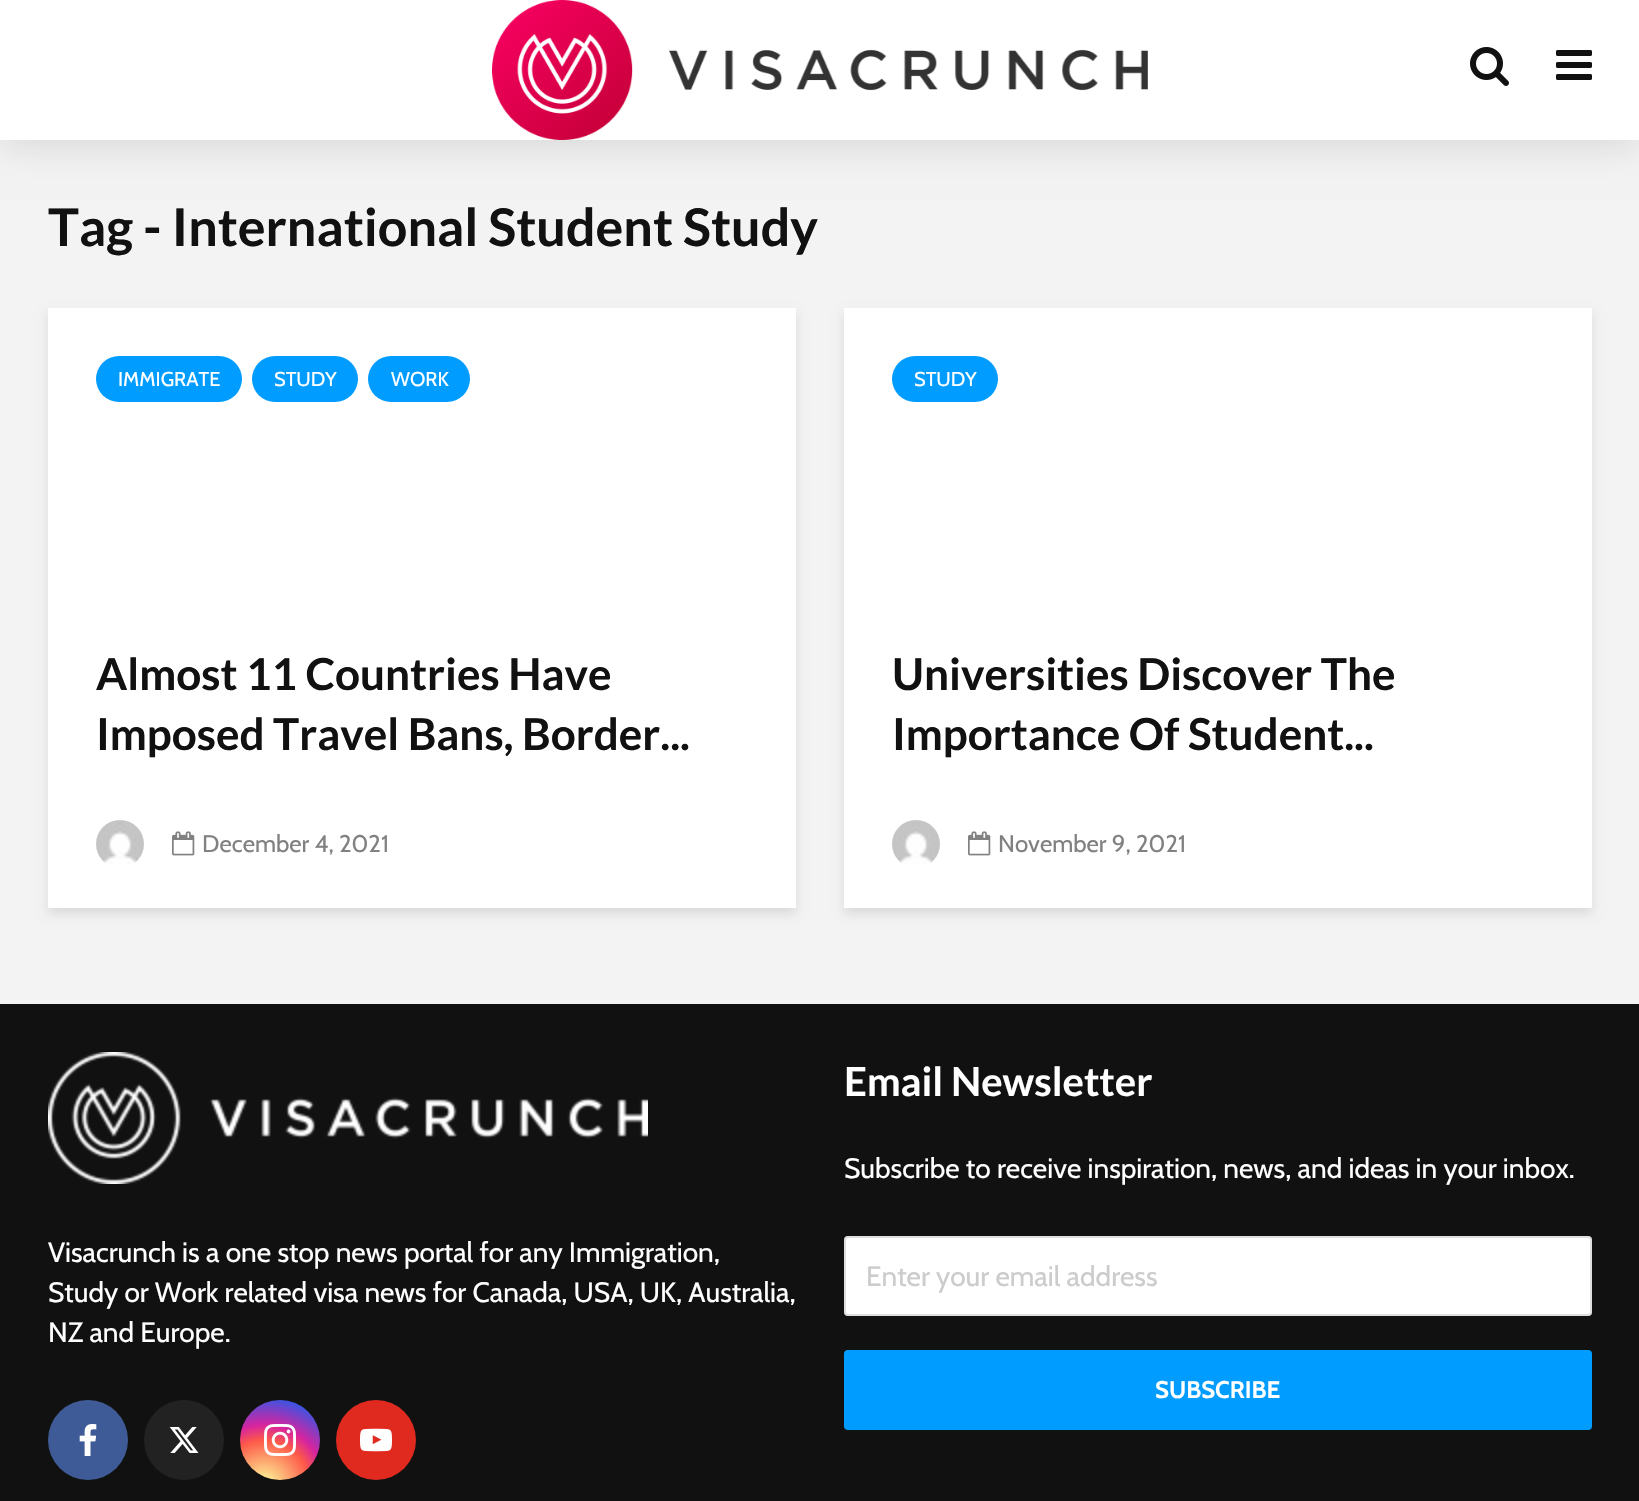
static SkFont makeFont(const char* family, int weight, float size, bool italic = false) {
  SkFontStyle style(weight, SkFontStyle::kNormal_Width,
    italic ? SkFontStyle::kItalic_Slant : SkFontStyle::kUpright_Slant);
  SkFont result(fontMgr->matchFamilyStyle(family, style), size);
  result.setSubpixel(true);
  return result;
}

static void text(SkCanvas* c, const char* s, float x, float y, const SkFont& font, SkColor color) {
  SkPaint ink(SkColor4f::FromColor(color));
  ink.setAntiAlias(true);
  c->drawString(s, x, y, font, ink);
}

static void box(SkCanvas* c, float l, float t, float r, float b, SkColor color) {
  SkPaint ink(SkColor4f::FromColor(color));
  ink.setAntiAlias(true);
  c->drawRect(SkRect::MakeLTRB(l, t, r, b), ink);
}

static void roundBox(SkCanvas* c, float l, float t, float r, float b, float radius, SkColor color) {
  SkPaint ink(SkColor4f::FromColor(color));
  ink.setAntiAlias(true);
  c->drawRoundRect(SkRect::MakeLTRB(l, t, r, b), radius, radius, ink);
}

static void picture(SkCanvas* c, const char* path, float l, float t, float r, float b) {
  auto image = SkImages::DeferredFromEncodedData(SkData::MakeFromFileName(path));
  c->drawImageRect(image, SkRect::MakeLTRB(l, t, r, b), SkSamplingOptions());
}

void draw(SkCanvas* c) {
  SkPaint paint;
  paint.setAntiAlias(true);
  c->clear(0xfff3f3f3);
  paint.setColor(0x26000000);
  paint.setMaskFilter(SkMaskFilter::MakeBlur(kNormal_SkBlurStyle, 20));
  c->drawRect(SkRect::MakeLTRB(0, 0, 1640, 140), paint);
  paint.setMaskFilter(nullptr);
  box(c, 0, 0, 1639, 140, 0xffffffff);
  picture(c, "img_01.png", 492, 0, 1148, 140);
  picture(c, "img_02.png", 1470, 47, 1509, 86);
  picture(c, "img_03.png", 1556, 50, 1592, 80);
  SkFont face1 = makeFont("Lato", 700, 52);
  text(c, "Tag - International Student Study", 48, 246, face1, 0xff111111);
  paint.setColor(0x1a000101);
  paint.setMaskFilter(SkMaskFilter::MakeBlur(kNormal_SkBlurStyle, 5));
  c->drawRect(SkRect::MakeLTRB(48, 314, 796, 914), paint);
  paint.setMaskFilter(nullptr);
  box(c, 48, 308, 796, 908, 0xffffffff);
  roundBox(c, 96, 356, 242, 402, 23, 0xff009cff);
  SkFont face2 = makeFont("Cabin", 400, 20);
  text(c, "IMMIGRATE", 118, 386, face2, 0xffffffff);
  roundBox(c, 252, 356, 358, 402, 23, 0xff009cff);
  text(c, "STUDY", 274, 386, face2, 0xffffffff);
  roundBox(c, 368, 356, 470, 402, 23, 0xff009cff);
  text(c, "WORK", 391, 386, face2, 0xffffffff);
  SkFont face3 = makeFont("Lato", 700, 44);
  text(c, "Almost 11 Countries Have", 96, 690, face3, 0xff111111);
  text(c, "Imposed Travel Bans, Border...", 96, 750, face3, 0xff111111);
  picture(c, "img_04.png", 96, 820, 144, 864);
  picture(c, "img_05.png", 172, 831, 195, 856);
  SkFont face4 = makeFont("Cabin", 400, 24);
  text(c, "December 4, 2021", 202, 852, face4, 0xff818181);
  paint.setMaskFilter(SkMaskFilter::MakeBlur(kNormal_SkBlurStyle, 5));
  c->drawRect(SkRect::MakeLTRB(844, 314, 1592, 914), paint);
  paint.setMaskFilter(nullptr);
  box(c, 844, 308, 1592, 908, 0xffffffff);
  roundBox(c, 892, 356, 998, 402, 23, 0xff009cff);
  text(c, "STUDY", 914, 386, face2, 0xffffffff);
  text(c, "Universities Discover The", 892, 690, face3, 0xff111111);
  text(c, "Importance Of Student...", 892, 750, face3, 0xff111111);
  picture(c, "img_04.png", 892, 820, 940, 864);
  picture(c, "img_05.png", 968, 831, 991, 856);
  text(c, "November 9, 2021", 998, 852, face4, 0xff818181);
  box(c, 0, 1004, 1639, 1501, 0xff111111);
  picture(c, "img_06.png", 48, 1052, 648, 1184);
  SkFont face5 = makeFont("Cabin", 400, 28);
  text(c, "Visacrunch is a one stop news portal for any Immigration,", 48, 1262, face5, 0xffffffff);
  text(c, "Study or Work related visa news for Canada, USA, UK, Australia,", 48, 1302, face5, 0xffffffff);
  text(c, "NZ and Europe.", 48, 1342, face5, 0xffffffff);
  paint.setColor(0xff3e5b98);
  c->drawCircle(88, 1440, 40, paint);
  picture(c, "img_07.png", 79, 1424, 97, 1456);
  paint.setColor(0xff222222);
  c->drawCircle(184, 1440, 40, paint);
  picture(c, "img_08.png", 169, 1427, 199, 1453);
  {
    const SkColor colors[] = {0xfffdf497, 0xfffdf497, 0xfffd5949, 0xffd6249f, 0xff285aeb};
    const float stops[] = {0, 0.05f, 0.45f, 0.6f, 0.9f};
    paint.setShader(SkGradientShader::MakeRadial({264, 1486}, 102, colors, stops, 5, SkTileMode::kClamp));
    paint.setAlpha(255);
  }
  c->drawCircle(280, 1440, 40, paint);
  picture(c, "img_09.png", 264, 1424, 296, 1456);
  paint.setShader(nullptr);
  paint.setColor(0xffe02a20);
  c->drawCircle(376, 1440, 40, paint);
  picture(c, "img_10.png", 360, 1428, 392, 1452);
  SkFont face6 = makeFont("Lato", 700, 40);
  text(c, "Email Newsletter", 844, 1096, face6, 0xffffffff);
  text(c, "Subscribe to receive inspiration, news, and ideas in your inbox.", 844, 1178, face5, 0xffffffff);
  roundBox(c, 844, 1236, 1592, 1316, 4, 0xffffffff);
  paint.setStyle(SkPaint::kStroke_Style);
  paint.setStrokeWidth(2);
  paint.setColor(0x335e5e5e);
  c->drawRoundRect(SkRect::MakeLTRB(845, 1237, 1591, 1315), 3, 3, paint);
  text(c, "Enter your email address", 866, 1286, face5, 0xffcccccc);
  roundBox(c, 844, 1350, 1592, 1430, 4, 0xff009cff);
  SkFont face7 = makeFont("Cabin", 700, 24);
  text(c, "SUBSCRIBE", 1155, 1398, face7, 0xffffffff);
}
